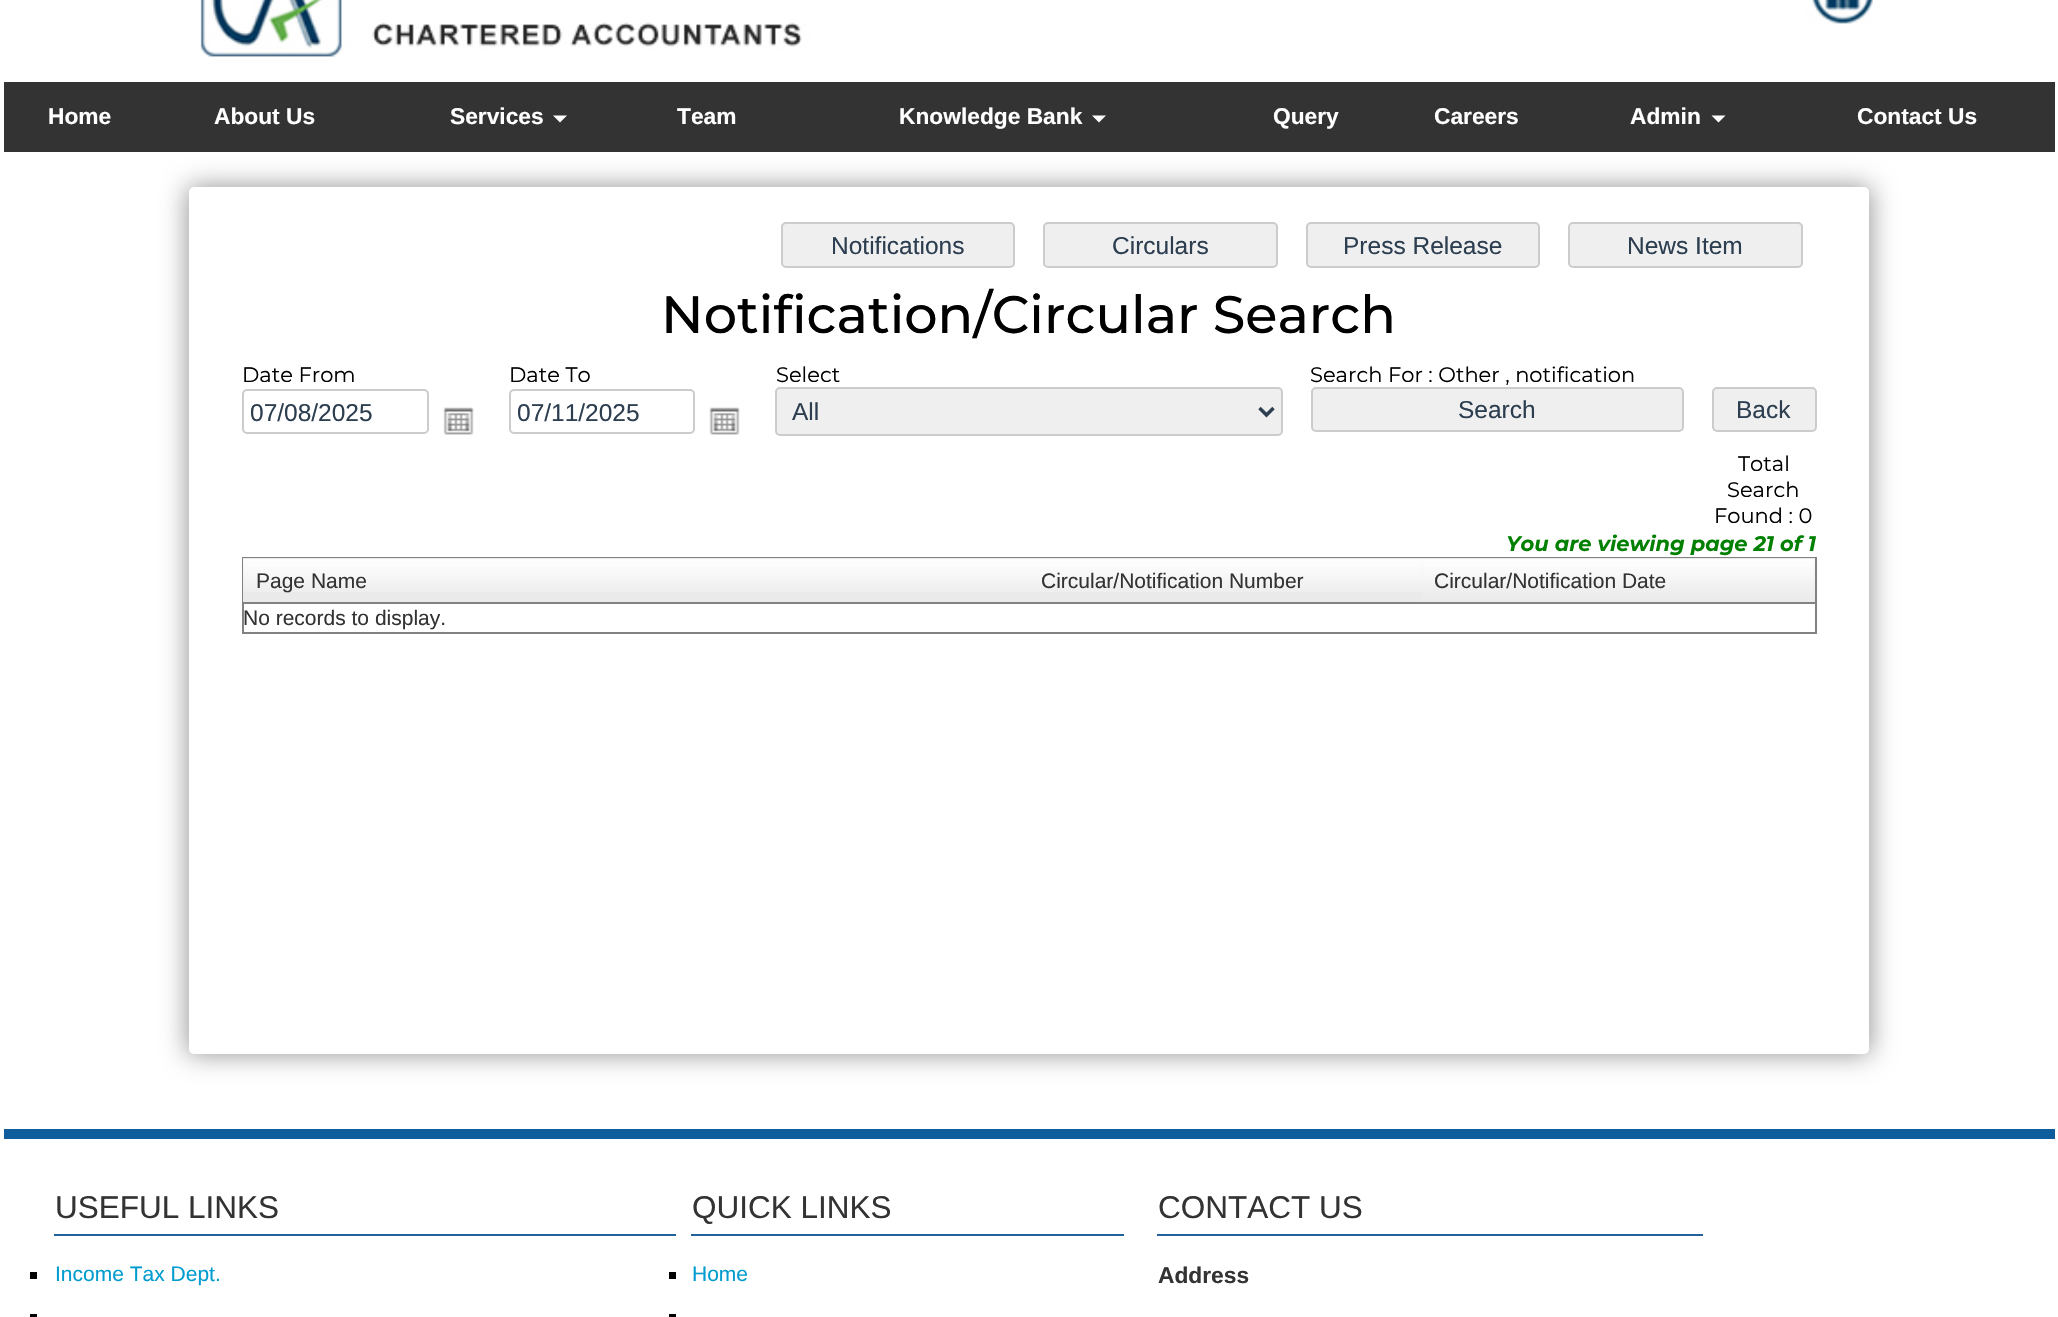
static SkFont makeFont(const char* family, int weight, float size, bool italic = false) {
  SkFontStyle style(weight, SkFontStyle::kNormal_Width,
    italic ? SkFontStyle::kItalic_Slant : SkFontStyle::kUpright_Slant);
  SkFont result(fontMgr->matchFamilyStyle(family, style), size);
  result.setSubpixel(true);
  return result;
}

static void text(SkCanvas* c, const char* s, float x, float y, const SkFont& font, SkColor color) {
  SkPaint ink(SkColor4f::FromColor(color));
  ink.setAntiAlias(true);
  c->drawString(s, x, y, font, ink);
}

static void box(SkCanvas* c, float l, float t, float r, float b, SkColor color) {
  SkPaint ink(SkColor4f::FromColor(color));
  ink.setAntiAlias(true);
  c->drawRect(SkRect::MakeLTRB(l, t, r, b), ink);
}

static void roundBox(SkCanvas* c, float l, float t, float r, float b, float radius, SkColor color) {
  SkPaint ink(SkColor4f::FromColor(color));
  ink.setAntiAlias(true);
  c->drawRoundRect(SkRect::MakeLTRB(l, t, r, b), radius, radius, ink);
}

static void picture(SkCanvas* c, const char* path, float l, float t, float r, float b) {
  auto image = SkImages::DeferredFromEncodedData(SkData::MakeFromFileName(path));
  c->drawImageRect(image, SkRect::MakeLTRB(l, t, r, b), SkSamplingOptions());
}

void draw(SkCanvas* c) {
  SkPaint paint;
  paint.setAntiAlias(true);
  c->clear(0xffffffff);
  picture(c, "img_01.png", 200, 0, 1873, 57);
  paint.setColor(0x66000000);
  paint.setMaskFilter(SkMaskFilter::MakeBlur(kNormal_SkBlurStyle, 13));
  c->drawRoundRect(SkRect::MakeLTRB(187, 186, 1871, 1055), 7, 7, paint);
  paint.setMaskFilter(nullptr);
  box(c, 4, 82, 2055, 152, 0xff333333);
  SkFont face1 = makeFont("Liberation Sans", 700, 22.75f);
  text(c, "Home", 48, 124, face1, 0xffffffff);
  text(c, "About Us", 214, 124, face1, 0xffffffff);
  text(c, "Services", 450, 124, face1, 0xffffffff);
  paint.setColor(0xffffffff);
  c->drawPath(SkPathBuilder().moveTo(553, 115.5f).lineTo(567, 115.5f).lineTo(560, 122.5f).close().detach(), paint);
  text(c, "Team", 677, 124, face1, 0xffffffff);
  text(c, "Knowledge Bank", 899, 124, face1, 0xffffffff);
  c->drawPath(SkPathBuilder().moveTo(1092, 115.5f).lineTo(1106, 115.5f).lineTo(1099, 122.5f).close().detach(), paint);
  text(c, "Query", 1273, 124, face1, 0xffffffff);
  text(c, "Careers", 1434, 124, face1, 0xffffffff);
  text(c, "Admin", 1630, 124, face1, 0xffffffff);
  c->drawPath(SkPathBuilder().moveTo(1711.5f, 115.5f).lineTo(1725.5f, 115.5f).lineTo(1718.5f, 122.5f).close().detach(), paint);
  text(c, "Contact Us", 1857, 124, face1, 0xffffffff);
  roundBox(c, 189, 187, 1869, 1054, 5, 0xffffffff);
  paint.setColor(0xffefefef);
  c->drawRoundRect(SkRect::MakeLTRB(782, 223, 1014, 267), 4, 4, paint);
  paint.setStyle(SkPaint::kStroke_Style);
  paint.setStrokeWidth(2);
  paint.setColor(0xffcccccc);
  c->drawRoundRect(SkRect::MakeLTRB(782, 223, 1014, 267), 4, 4, paint);
  SkFont face2 = makeFont("Liberation Sans", 400, 24.5f);
  text(c, "Notifications", 831, 254, face2, 0xff2c3e50);
  paint.setStyle(SkPaint::kFill_Style);
  paint.setColor(0xffefefef);
  c->drawRoundRect(SkRect::MakeLTRB(1044, 223, 1277, 267), 4, 4, paint);
  paint.setStyle(SkPaint::kStroke_Style);
  paint.setColor(0xffcccccc);
  c->drawRoundRect(SkRect::MakeLTRB(1044, 223, 1277, 267), 4, 4, paint);
  text(c, "Circulars", 1112, 254, face2, 0xff2c3e50);
  paint.setStyle(SkPaint::kFill_Style);
  paint.setColor(0xffefefef);
  c->drawRoundRect(SkRect::MakeLTRB(1307, 223, 1539, 267), 4, 4, paint);
  paint.setStyle(SkPaint::kStroke_Style);
  paint.setColor(0xffcccccc);
  c->drawRoundRect(SkRect::MakeLTRB(1307, 223, 1539, 267), 4, 4, paint);
  text(c, "Press Release", 1343, 254, face2, 0xff2c3e50);
  paint.setStyle(SkPaint::kFill_Style);
  paint.setColor(0xffefefef);
  c->drawRoundRect(SkRect::MakeLTRB(1569, 223, 1802, 267), 4, 4, paint);
  paint.setStyle(SkPaint::kStroke_Style);
  paint.setColor(0xffcccccc);
  c->drawRoundRect(SkRect::MakeLTRB(1569, 223, 1802, 267), 4, 4, paint);
  text(c, "News Item", 1627, 254, face2, 0xff2c3e50);
  SkFont face3 = makeFont("Montserrat", 500, 52.5f);
  text(c, "Notification/Circular Search", 661, 333, face3, 0xff000000);
  SkFont face4 = makeFont("Montserrat", 400, 21);
  text(c, "Date From", 242, 382, face4, 0xff000000);
  c->drawRoundRect(SkRect::MakeLTRB(243, 390, 428, 433), 4, 4, paint);
  text(c, "07/08/2025", 250, 421, face2, 0xff2c3e50);
  picture(c, "img_02.png", 443, 407, 474, 435);
  text(c, "Date To", 509, 382, face4, 0xff000000);
  c->drawRoundRect(SkRect::MakeLTRB(510, 390, 694, 433), 4, 4, paint);
  text(c, "07/11/2025", 517, 421, face2, 0xff2c3e50);
  picture(c, "img_02.png", 709, 407, 740, 435);
  text(c, "Select", 776, 382, face4, 0xff000000);
  paint.setStyle(SkPaint::kFill_Style);
  paint.setColor(0xffefefef);
  c->drawRoundRect(SkRect::MakeLTRB(776, 388, 1282, 435), 4, 4, paint);
  paint.setStyle(SkPaint::kStroke_Style);
  paint.setColor(0xffcccccc);
  c->drawRoundRect(SkRect::MakeLTRB(776, 388, 1282, 435), 4, 4, paint);
  paint.setStrokeWidth(3.5f);
  paint.setColor(0xff2c3e50);
  c->drawPath(SkPathBuilder().moveTo(1259.5f, 408).lineTo(1266.5f, 415).lineTo(1273.5f, 408).detach(), paint);
  text(c, "All", 792, 420, face2, 0xff2c3e50);
  text(c, "Search For : Other , notification", 1310, 382, face4, 0xff000000);
  paint.setStyle(SkPaint::kFill_Style);
  paint.setColor(0xffefefef);
  c->drawRoundRect(SkRect::MakeLTRB(1312, 388, 1683, 431), 4, 4, paint);
  paint.setStyle(SkPaint::kStroke_Style);
  paint.setStrokeWidth(2);
  paint.setColor(0xffcccccc);
  c->drawRoundRect(SkRect::MakeLTRB(1312, 388, 1683, 431), 4, 4, paint);
  text(c, "Search", 1458, 418, face2, 0xff2c3e50);
  paint.setStyle(SkPaint::kFill_Style);
  paint.setColor(0xffefefef);
  c->drawRoundRect(SkRect::MakeLTRB(1713, 388, 1816, 431), 4, 4, paint);
  paint.setStyle(SkPaint::kStroke_Style);
  paint.setColor(0xffcccccc);
  c->drawRoundRect(SkRect::MakeLTRB(1713, 388, 1816, 431), 4, 4, paint);
  text(c, "Back", 1736, 418, face2, 0xff2c3e50);
  text(c, "Total", 1738, 471, face4, 0xff000000);
  text(c, "Search", 1727, 497, face4, 0xff000000);
  text(c, "Found : 0", 1714, 523, face4, 0xff000000);
  SkFont face5 = makeFont("Montserrat", 700, 21, true);
  text(c, "You are viewing page 21 of 1", 1506, 551, face5, 0xff008000);
  paint.setColor(0xff828282);
  c->drawRect(SkRect::MakeLTRB(243, 558, 1816, 633), paint);
  box(c, 243, 558, 1815, 602, 0xffeaeaea);
  picture(c, "img_03.png", 243, 559, 1029, 592);
  box(c, 243, 602, 1423, 604, 0xff828282);
  SkFont face6 = makeFont("Liberation Sans", 400, 21);
  text(c, "Page Name", 256, 588, face6, 0xff333333);
  picture(c, "img_04.png", 1029, 559, 1423, 592);
  text(c, "Circular/Notification Number", 1041, 588, face6, 0xff333333);
  picture(c, "img_05.png", 1422, 559, 1815, 603);
  box(c, 1423, 602, 1815, 604, 0xff828282);
  text(c, "Circular/Notification Date", 1434, 588, face6, 0xff333333);
  text(c, "No records to display.", 243, 625, face6, 0xff333333);
  box(c, 4, 1129, 2055, 1139, 0xff0f5d9d);
  box(c, 54, 1234, 676, 1236, 0xff226199);
  SkFont face7 = makeFont("Liberation Sans", 400, 31.5f);
  text(c, "USEFUL LINKS", 55, 1218, face7, 0xff333333);
  box(c, 691, 1234, 1124, 1236, 0xff226199);
  text(c, "QUICK LINKS", 692, 1218, face7, 0xff333333);
  box(c, 1157, 1234, 1703, 1236, 0xff226199);
  text(c, "CONTACT US", 1158, 1218, face7, 0xff333333);
  box(c, 30, 1272, 37, 1279, 0xff000000);
  text(c, "Income Tax Dept.", 55, 1281, face6, 0xff009ccf);
  box(c, 30, 1314, 37, 1317, 0xff000000);
  box(c, 669, 1272, 676, 1279, 0xff000000);
  text(c, "Home", 692, 1281, face6, 0xff009ccf);
  box(c, 669, 1314, 676, 1317, 0xff000000);
  text(c, "Address", 1158, 1283, face1, 0xff333333);
}
